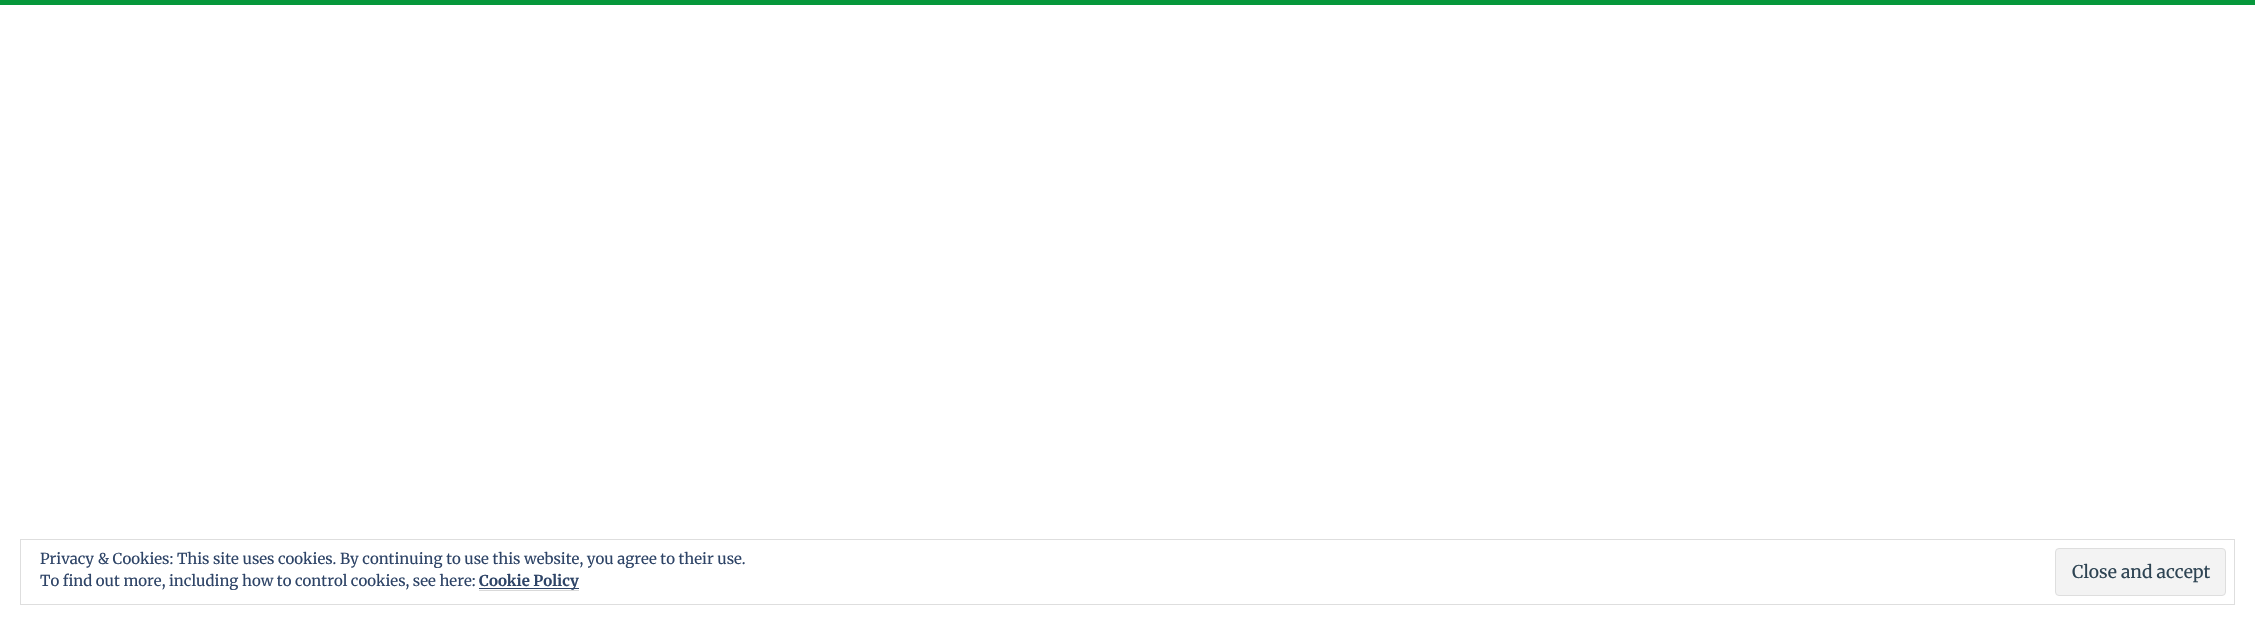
static SkFont makeFont(const char* family, int weight, float size, bool italic = false) {
  SkFontStyle style(weight, SkFontStyle::kNormal_Width,
    italic ? SkFontStyle::kItalic_Slant : SkFontStyle::kUpright_Slant);
  SkFont result(fontMgr->matchFamilyStyle(family, style), size);
  result.setSubpixel(true);
  return result;
}

static void text(SkCanvas* c, const char* s, float x, float y, const SkFont& font, SkColor color) {
  SkPaint ink(SkColor4f::FromColor(color));
  ink.setAntiAlias(true);
  c->drawString(s, x, y, font, ink);
}

static void box(SkCanvas* c, float l, float t, float r, float b, SkColor color) {
  SkPaint ink(SkColor4f::FromColor(color));
  ink.setAntiAlias(true);
  c->drawRect(SkRect::MakeLTRB(l, t, r, b), ink);
}

void draw(SkCanvas* c) {
  SkPaint paint;
  paint.setAntiAlias(true);
  c->clear(0xffffffff);
  box(c, 0, 0, 2255, 5, 0xff06973b);
  paint.setStyle(SkPaint::kStroke_Style);
  paint.setStrokeWidth(1);
  paint.setColor(0xffdedede);
  c->drawRect(SkRect::MakeLTRB(20.5f, 539.5f, 2234.5f, 604.5f), paint);
  SkFont face1 = makeFont("Merriweather", 400, 15);
  text(c, "Privacy & Cookies: This site uses cookies. By continuing to use this website, you agree to their use.", 40, 564, face1, 0xff2e4467);
  text(c, "To find out more, including how to control cookies, see here:", 40, 586, face1, 0xff2e4467);
  box(c, 479, 588, 579, 589, 0xff2e4467);
  SkFont face2 = makeFont("Merriweather", 700, 15);
  text(c, "Cookie Policy", 479, 586, face2, 0xff2e4467);
  box(c, 479, 590, 579, 591, 0xffd9d9d9);
  paint.setStyle(SkPaint::kFill_Style);
  paint.setColor(0xfff3f3f3);
  c->drawRoundRect(SkRect::MakeLTRB(2055.5f, 548.5f, 2225.5f, 595.5f), 3.5f, 3.5f, paint);
  paint.setStyle(SkPaint::kStroke_Style);
  paint.setColor(0xffdedede);
  c->drawRoundRect(SkRect::MakeLTRB(2055.5f, 548.5f, 2225.5f, 595.5f), 3.5f, 3.5f, paint);
  SkFont face3 = makeFont("Merriweather", 400, 17.5f);
  text(c, "Close and accept", 2072, 578, face3, 0xff2e4453);
}
